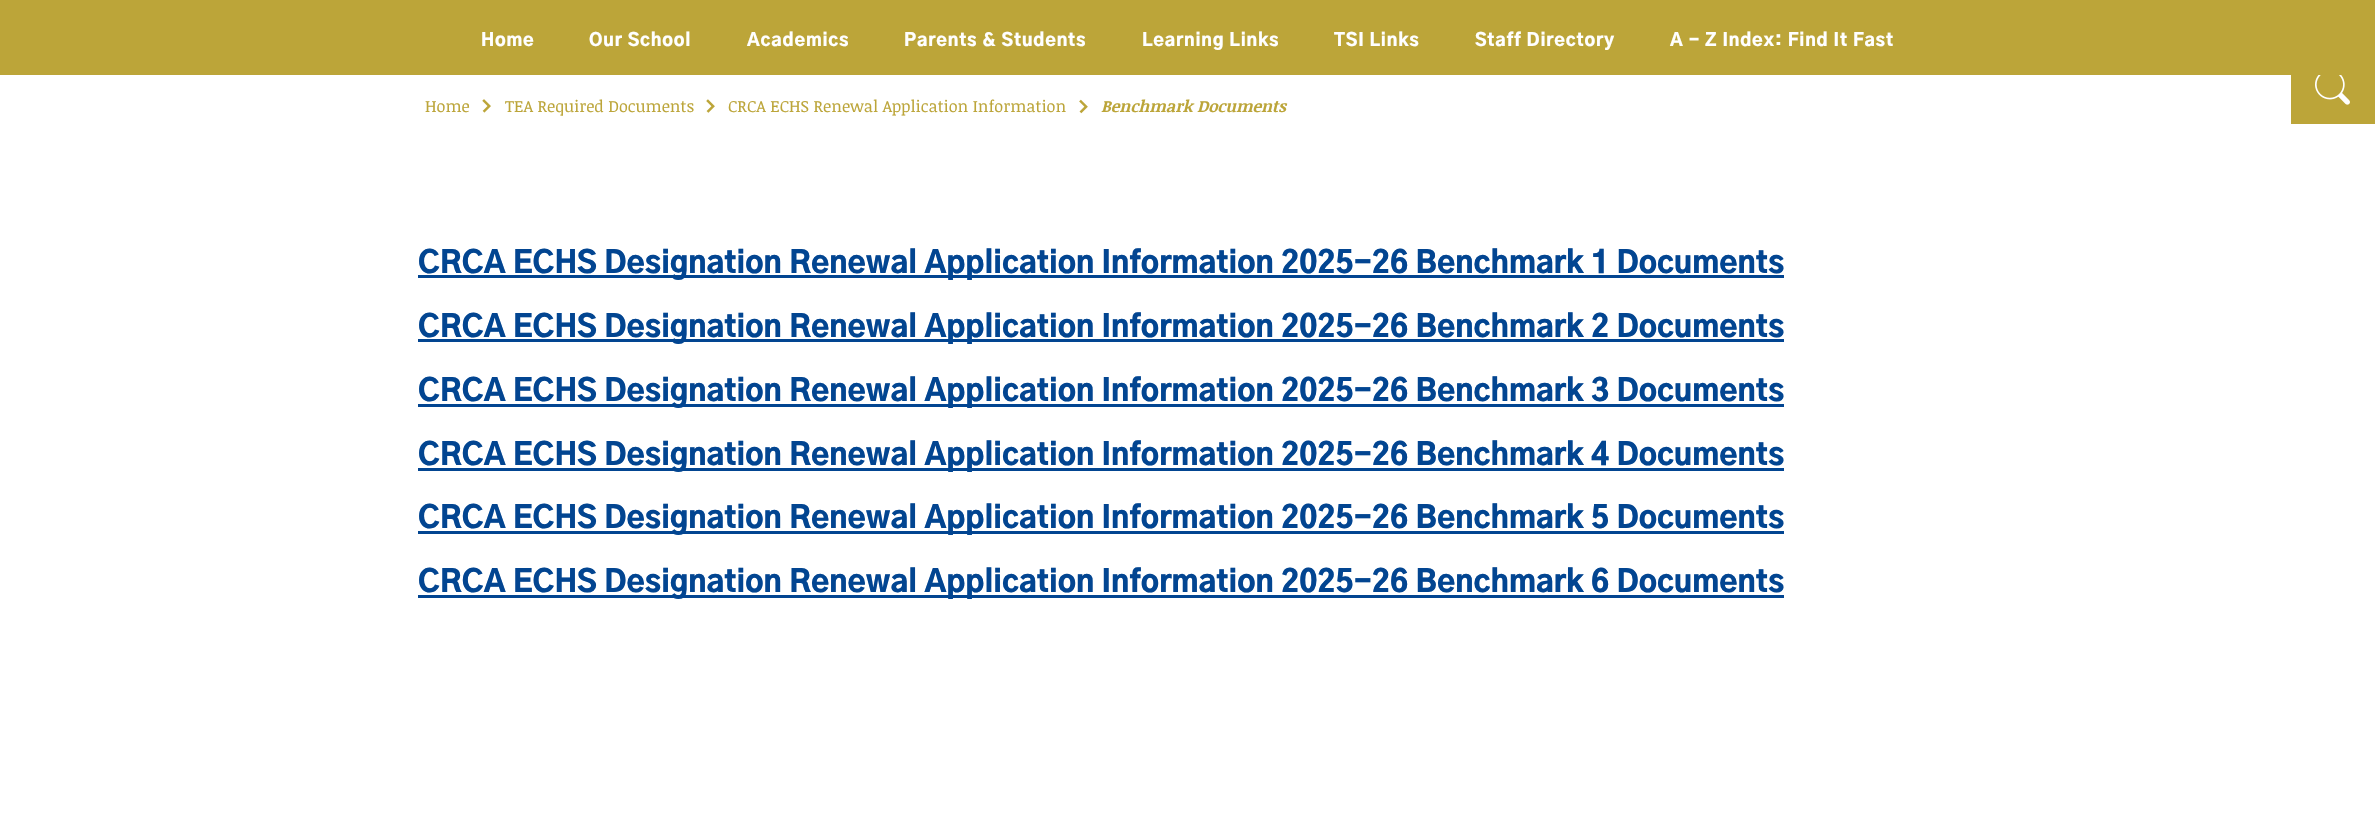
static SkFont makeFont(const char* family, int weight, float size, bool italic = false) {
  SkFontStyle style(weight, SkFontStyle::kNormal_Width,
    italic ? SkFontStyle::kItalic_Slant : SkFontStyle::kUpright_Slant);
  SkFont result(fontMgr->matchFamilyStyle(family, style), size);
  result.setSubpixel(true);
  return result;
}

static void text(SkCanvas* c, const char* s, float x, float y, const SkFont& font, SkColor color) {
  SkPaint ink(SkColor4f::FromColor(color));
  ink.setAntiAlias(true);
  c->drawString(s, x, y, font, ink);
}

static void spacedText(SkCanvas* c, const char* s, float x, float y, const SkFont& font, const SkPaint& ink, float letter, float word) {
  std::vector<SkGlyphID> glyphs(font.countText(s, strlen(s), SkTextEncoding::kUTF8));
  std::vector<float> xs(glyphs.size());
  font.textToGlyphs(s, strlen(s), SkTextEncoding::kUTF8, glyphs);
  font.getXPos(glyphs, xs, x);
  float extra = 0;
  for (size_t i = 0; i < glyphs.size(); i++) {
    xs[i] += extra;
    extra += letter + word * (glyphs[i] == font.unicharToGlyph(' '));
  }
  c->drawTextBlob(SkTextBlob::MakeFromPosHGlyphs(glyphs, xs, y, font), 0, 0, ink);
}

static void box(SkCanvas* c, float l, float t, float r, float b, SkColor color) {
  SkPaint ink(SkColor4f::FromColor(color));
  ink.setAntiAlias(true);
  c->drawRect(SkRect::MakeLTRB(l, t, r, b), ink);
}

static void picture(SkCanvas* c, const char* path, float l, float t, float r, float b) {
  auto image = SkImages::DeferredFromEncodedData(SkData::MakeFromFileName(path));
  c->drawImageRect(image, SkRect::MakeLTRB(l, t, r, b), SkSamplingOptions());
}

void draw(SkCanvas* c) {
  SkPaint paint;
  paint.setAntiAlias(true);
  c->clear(0xffffffff);
  box(c, 0, 0, 2375, 75, 0xffbca539);
  SkFont face1 = makeFont("Gothic A1", 900, 17.5f);
  paint.setColor(0xffffffff);
  spacedText(c, "Home", 481, 46, face1, paint, 0.8f, 0);
  spacedText(c, "Our School", 589, 46, face1, paint, 0.8f, 0);
  spacedText(c, "Academics", 747, 46, face1, paint, 0.8f, 0);
  spacedText(c, "Parents & Students", 904, 46, face1, paint, 0.8f, 0);
  spacedText(c, "Learning Links", 1142, 46, face1, paint, 0.8f, 0);
  spacedText(c, "TSI Links", 1334, 46, face1, paint, 0.8f, 0);
  spacedText(c, "Staff Directory", 1475, 46, face1, paint, 0.8f, 0);
  spacedText(c, "A - Z Index: Find It Fast", 1670, 46, face1, paint, 0.8f, 0);
  SkFont face2 = makeFont("Noticia Text", 400, 16.25f);
  text(c, "Home", 425, 112, face2, 0xffbca539);
  picture(c, "img_01.png", 482, 99, 491, 113);
  text(c, "TEA Required Documents", 505, 112, face2, 0xffbca539);
  picture(c, "img_02.png", 706, 99, 715, 113);
  text(c, "CRCA ECHS Renewal Application Information", 728, 112, face2, 0xffbca539);
  picture(c, "img_03.png", 1079, 99, 1088, 114);
  SkFont face3 = makeFont("Noticia Text", 700, 16.25f, true);
  text(c, "Benchmark Documents", 1101, 112, face3, 0xffbca539);
  box(c, 2291, 75, 2375, 124, 0xffbca539);
  picture(c, "img_04.png", 2315, 75, 2350, 105);
  box(c, 418, 275, 1784, 278, 0xff024591);
  SkFont face4 = makeFont("Gothic A1", 900, 30);
  text(c, "CRCA ECHS Designation Renewal Application Information 2025-26 Benchmark 1 Documents", 418, 273, face4, 0xff024591);
  box(c, 418, 339, 1784, 342, 0xff024591);
  text(c, "CRCA ECHS Designation Renewal Application Information 2025-26 Benchmark 2 Documents", 418, 337, face4, 0xff024591);
  box(c, 418, 404, 1784, 407, 0xff024591);
  text(c, "CRCA ECHS Designation Renewal Application Information 2025-26 Benchmark 3 Documents", 418, 401, face4, 0xff024591);
  box(c, 418, 468, 1784, 471, 0xff024591);
  text(c, "CRCA ECHS Designation Renewal Application Information 2025-26 Benchmark 4 Documents", 418, 465, face4, 0xff024591);
  box(c, 418, 531, 1784, 534, 0xff024591);
  text(c, "CRCA ECHS Designation Renewal Application Information 2025-26 Benchmark 5 Documents", 418, 528, face4, 0xff024591);
  box(c, 418, 595, 1784, 598, 0xff024591);
  text(c, "CRCA ECHS Designation Renewal Application Information 2025-26 Benchmark 6 Documents", 418, 592, face4, 0xff024591);
}
